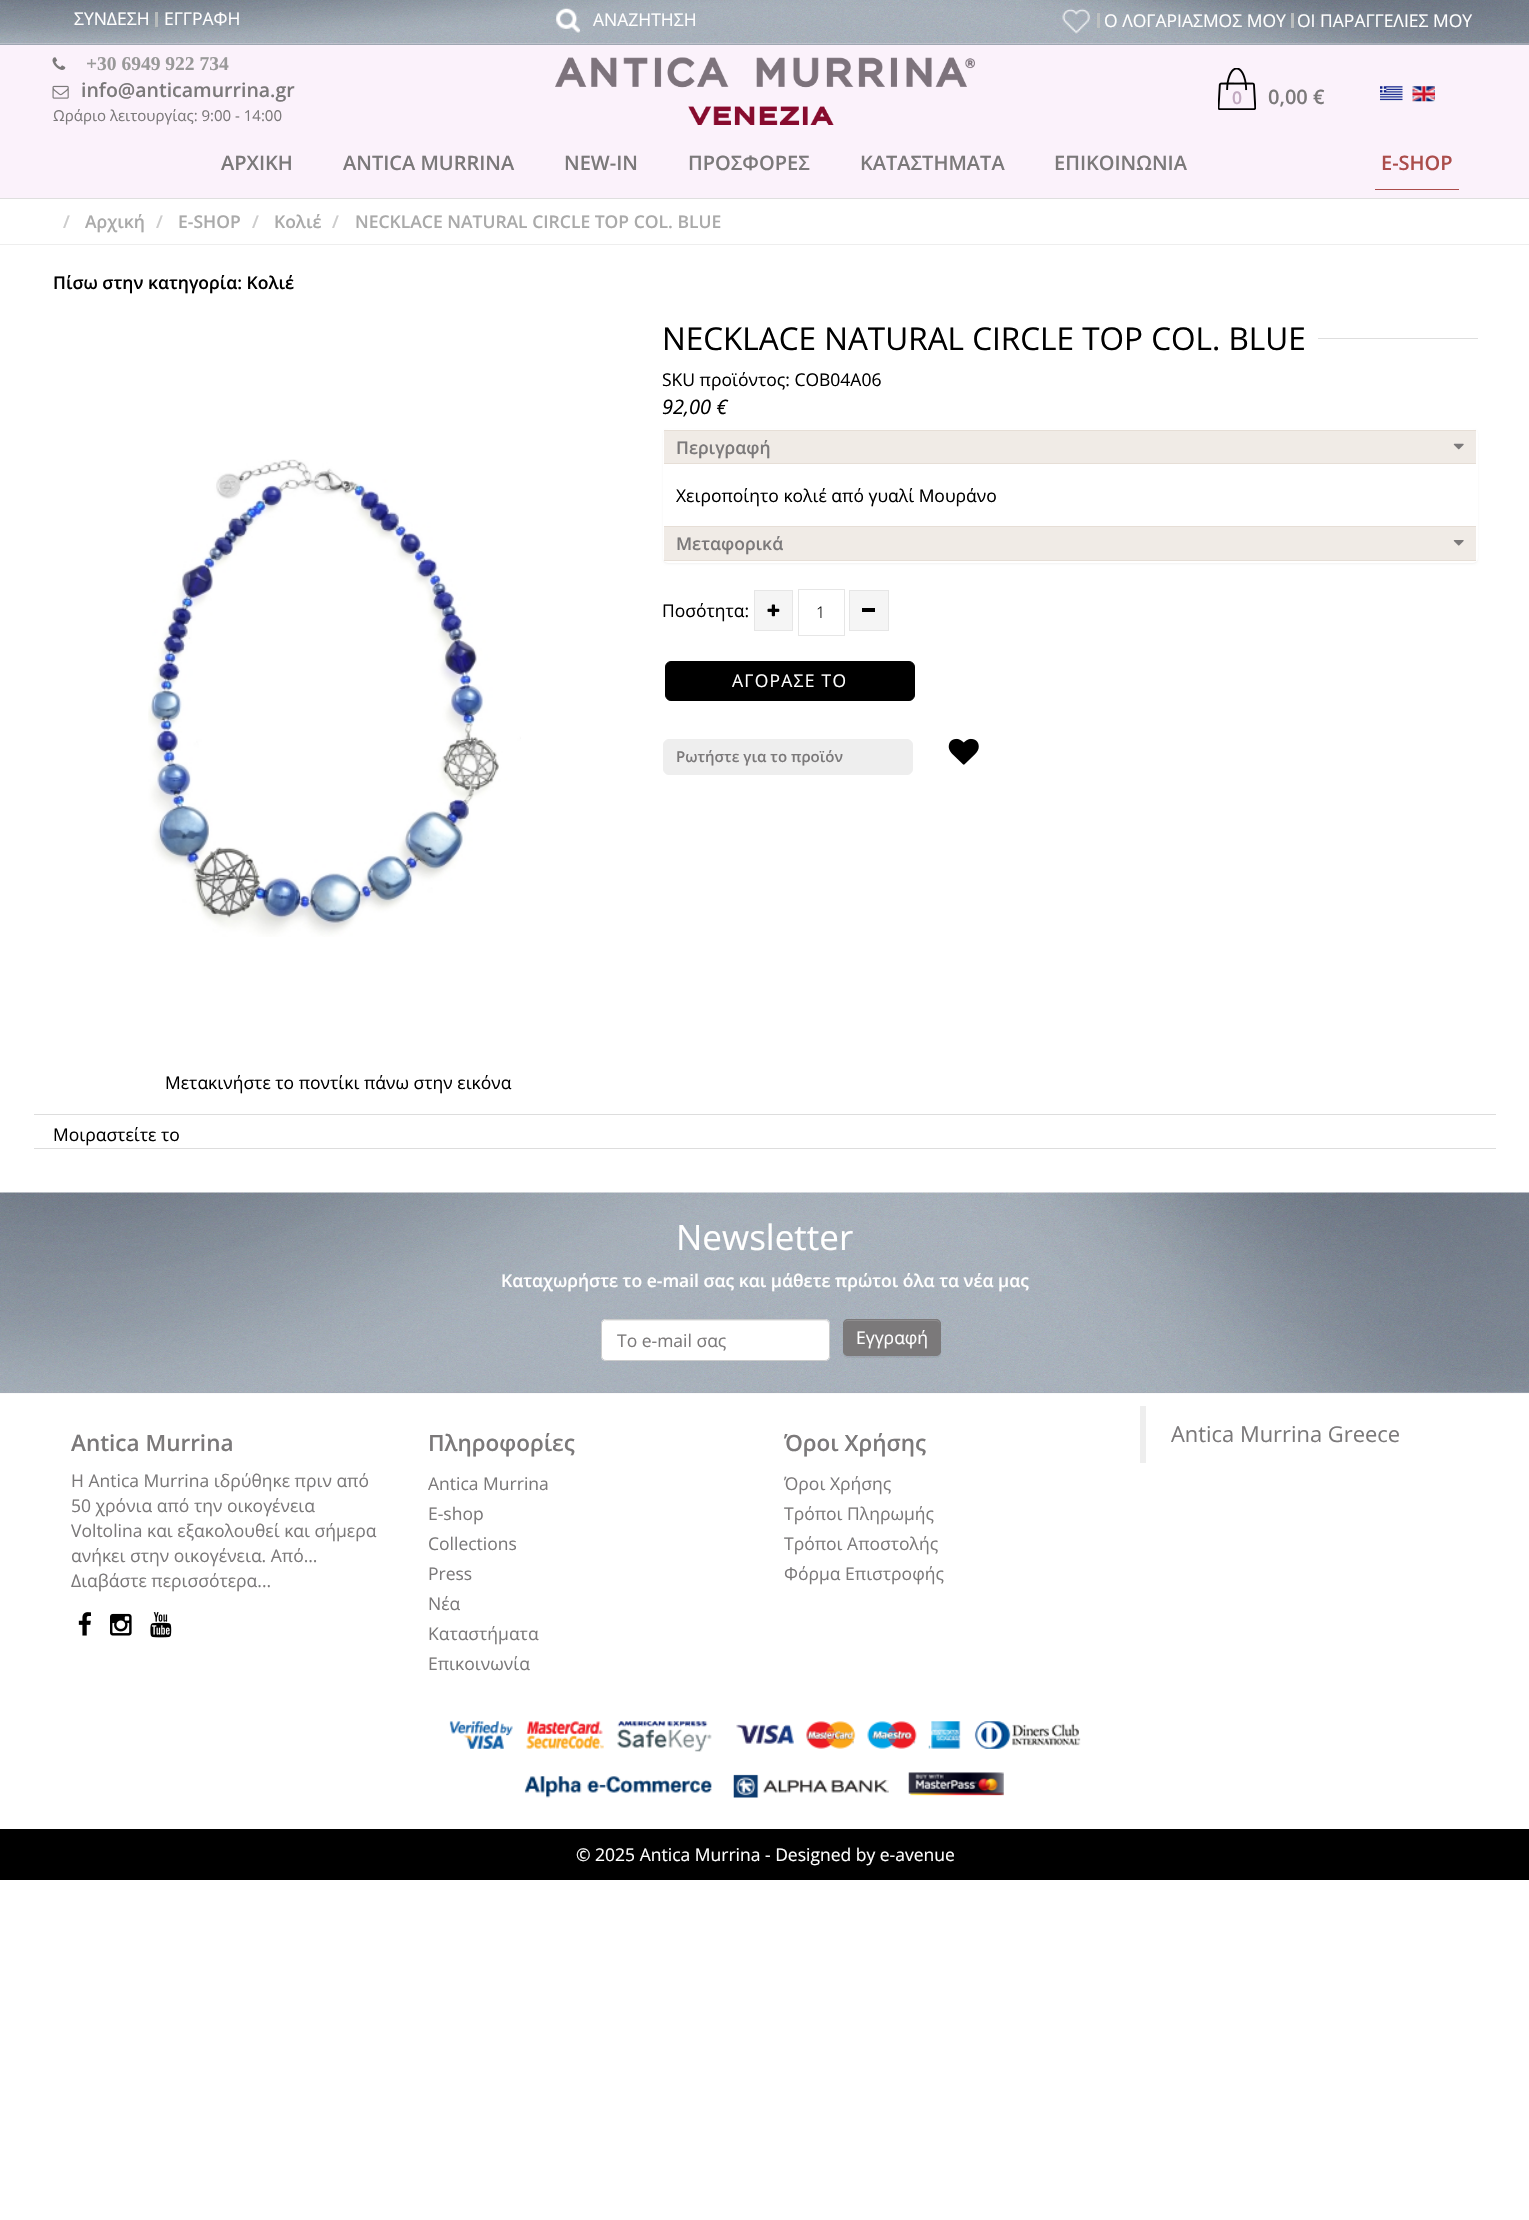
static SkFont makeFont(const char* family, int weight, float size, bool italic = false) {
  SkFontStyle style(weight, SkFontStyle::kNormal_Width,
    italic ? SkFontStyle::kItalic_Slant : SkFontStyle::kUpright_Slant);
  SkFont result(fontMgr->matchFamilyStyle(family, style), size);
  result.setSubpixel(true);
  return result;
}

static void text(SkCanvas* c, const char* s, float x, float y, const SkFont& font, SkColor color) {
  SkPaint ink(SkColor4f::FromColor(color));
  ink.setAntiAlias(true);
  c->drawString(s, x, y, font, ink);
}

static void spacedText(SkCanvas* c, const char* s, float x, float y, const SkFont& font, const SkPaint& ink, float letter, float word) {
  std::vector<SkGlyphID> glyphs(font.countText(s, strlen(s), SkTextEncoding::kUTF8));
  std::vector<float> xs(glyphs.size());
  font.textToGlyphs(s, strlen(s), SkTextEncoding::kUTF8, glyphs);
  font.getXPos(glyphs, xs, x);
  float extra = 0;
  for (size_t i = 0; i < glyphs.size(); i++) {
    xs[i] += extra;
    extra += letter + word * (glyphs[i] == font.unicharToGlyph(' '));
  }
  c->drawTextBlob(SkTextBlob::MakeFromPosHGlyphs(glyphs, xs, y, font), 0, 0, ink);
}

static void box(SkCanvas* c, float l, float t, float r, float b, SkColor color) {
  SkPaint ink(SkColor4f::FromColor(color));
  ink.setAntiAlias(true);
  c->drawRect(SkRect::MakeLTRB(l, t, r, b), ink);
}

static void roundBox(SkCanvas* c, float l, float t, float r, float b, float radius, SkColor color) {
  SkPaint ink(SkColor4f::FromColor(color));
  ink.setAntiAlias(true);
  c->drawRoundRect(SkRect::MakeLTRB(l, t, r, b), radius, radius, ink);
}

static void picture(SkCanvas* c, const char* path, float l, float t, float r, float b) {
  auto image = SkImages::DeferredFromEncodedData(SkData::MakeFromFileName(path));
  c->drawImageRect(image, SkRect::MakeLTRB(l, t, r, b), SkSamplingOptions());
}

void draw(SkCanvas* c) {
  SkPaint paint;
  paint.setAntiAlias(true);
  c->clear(0xffffffff);
  box(c, 0, 43, 1529, 198, 0xfffbf2fb);
  picture(c, "img_01.png", 0, 0, 1529, 44);
  box(c, 0, 44, 1529, 45, 0xff9fa6b2);
  SkFont face1 = makeFont("Open Sans", 400, 17.5f);
  text(c, "ΣΥΝΔΕΣΗ", 74, 25, face1, 0xffffffff);
  box(c, 155, 12, 158, 27, 0xffb9bcbc);
  text(c, "ΕΓΓΡΑΦΗ", 164, 25, face1, 0xffffffff);
  picture(c, "img_02.png", 556, 8, 580, 33);
  text(c, "ΑΝΑΖΗΤΗΣΗ", 593, 26, face1, 0xffffffff);
  picture(c, "img_03.png", 1062, 8, 1091, 34);
  box(c, 1097, 13, 1100, 28, 0xffbdc0c0);
  text(c, "Ο ΛΟΓΑΡΙΑΣΜΟΣ ΜΟΥ", 1104, 27, face1, 0xffffffff);
  box(c, 1291, 13, 1294, 28, 0xffbbbebe);
  text(c, "ΟΙ ΠΑΡΑΓΓΕΛΙΕΣ ΜΟΥ", 1297, 27, face1, 0xffffffff);
  box(c, 0, 198, 1529, 199, 0xffdfdfdf);
  picture(c, "img_04.png", 52, 57, 66, 70);
  SkFont face2 = makeFont("Liberation Serif", 700, 19.5f);
  text(c, "+30 6949 922 734", 86, 70, face2, 0xff999999);
  picture(c, "img_05.png", 52, 85, 69, 99);
  SkFont face3 = makeFont("Open Sans", 600, 19.5f);
  text(c, "info@anticamurrina.gr", 81, 97, face3, 0xff7b797a);
  SkFont face4 = makeFont("Open Sans", 400, 15);
  text(c, "Ωράριο λειτουργίας: 9:00 - 14:00", 53, 121, face4, 0xff7b797a);
  picture(c, "img_06.png", 555, 57, 975, 125);
  picture(c, "img_07.png", 1218, 68, 1256, 110);
  SkFont face5 = makeFont("Open Sans", 600, 17.5f);
  text(c, "0", 1232, 104, face5, 0xffc1a9c0);
  SkFont face6 = makeFont("Open Sans", 600, 20);
  text(c, "0,00 €", 1268, 104, face6, 0xff7b797a);
  picture(c, "img_08.png", 1380, 86, 1403, 101);
  picture(c, "img_09.png", 1412, 86, 1435, 102);
  text(c, "ΑΡΧΙΚΗ", 221, 170, face6, 0xff7b797a);
  text(c, "ANTICA MURRINA", 343, 170, face6, 0xff7b797a);
  text(c, "NEW-IN", 564, 170, face6, 0xff7b797a);
  text(c, "ΠΡΟΣΦΟΡΕΣ", 688, 170, face6, 0xff7b797a);
  text(c, "ΚΑΤΑΣΤΗΜΑΤΑ", 860, 170, face6, 0xff7b797a);
  text(c, "ΕΠΙΚΟΙΝΩΝΙΑ", 1054, 170, face6, 0xff7b797a);
  box(c, 1375, 189, 1459, 190, 0xffab4d4b);
  text(c, "E-SHOP", 1381, 170, face6, 0xffab4d4b);
  box(c, 0, 244, 1529, 245, 0xffeeeeee);
  text(c, "/", 63, 228, face5, 0xffcccccc);
  text(c, "Αρχική", 85, 228, face5, 0xffaaaaaa);
  text(c, "/", 156, 228, face5, 0xffcccccc);
  text(c, "E-SHOP", 178, 228, face5, 0xffaaaaaa);
  text(c, "/", 252, 228, face5, 0xffcccccc);
  text(c, "Κολιέ", 274, 228, face5, 0xffaaaaaa);
  text(c, "/", 332, 228, face5, 0xffcccccc);
  text(c, "NECKLACE NATURAL CIRCLE TOP COL. BLUE", 355, 228, face5, 0xffaaaaaa);
  text(c, "Πίσω στην κατηγορία: Κολιέ", 53, 289, face5, 0xff000000);
  SkFont face7 = makeFont("Open Sans", 400, 31.5f);
  text(c, "NECKLACE NATURAL CIRCLE TOP COL. BLUE", 662, 350, face7, 0xff000000);
  box(c, 1318, 338, 1478, 339, 0xffdedede);
  text(c, "SKU προϊόντος: COB04A06", 662, 386, face1, 0xff000000);
  SkFont face8 = makeFont("Open Sans", 400, 20, true);
  text(c, "92,00 €", 662, 414, face8, 0xff000000);
  paint.setColor(0x0d000000);
  paint.setMaskFilter(SkMaskFilter::MakeBlur(kNormal_SkBlurStyle, 1));
  c->drawRoundRect(SkRect::MakeLTRB(663, 430, 1478, 564), 5, 5, paint);
  paint.setMaskFilter(nullptr);
  roundBox(c, 663, 429, 1478, 563, 5, 0xffffffff);
  box(c, 664, 431, 1476, 463, 0xfff0ebe6);
  box(c, 664, 430, 1476, 431, 0xffe6ded6);
  box(c, 664, 463, 1476, 464, 0xffe6ded6);
  text(c, "Περιγραφή", 676, 454, face5, 0xff7b797a);
  picture(c, "img_10.png", 1453, 443, 1464, 450);
  text(c, "Χειροποίητο κολιέ από γυαλί Μουράνο", 676, 502, face1, 0xff000000);
  box(c, 664, 527, 1476, 560, 0xfff0ebe6);
  box(c, 664, 526, 1476, 527, 0xffe6ded6);
  box(c, 664, 560, 1476, 561, 0xffe6ded6);
  text(c, "Μεταφορικά", 676, 550, face5, 0xff7b797a);
  picture(c, "img_11.png", 1453, 540, 1464, 546);
  text(c, "Ποσότητα:", 662, 617, face1, 0xff000000);
  paint.setColor(0xfff5f5f5);
  c->drawRect(SkRect::MakeLTRB(754.5f, 590.5f, 792.5f, 630.5f), paint);
  paint.setStyle(SkPaint::kStroke_Style);
  paint.setStrokeWidth(1);
  paint.setColor(0xffe6e6e6);
  c->drawRect(SkRect::MakeLTRB(754.5f, 590.5f, 792.5f, 630.5f), paint);
  picture(c, "img_12.png", 767, 604, 780, 617);
  c->drawRect(SkRect::MakeLTRB(798.5f, 589.5f, 844.5f, 635.5f), paint);
  SkFont face9 = makeFont("Open Sans", 300, 16);
  text(c, "1", 816, 618, face9, 0xff000000);
  paint.setStyle(SkPaint::kFill_Style);
  paint.setColor(0xfff5f5f5);
  c->drawRect(SkRect::MakeLTRB(849.5f, 590.5f, 888.5f, 630.5f), paint);
  paint.setStyle(SkPaint::kStroke_Style);
  paint.setColor(0xffe6e6e6);
  c->drawRect(SkRect::MakeLTRB(849.5f, 590.5f, 888.5f, 630.5f), paint);
  box(c, 862, 608, 875, 612, 0xff000000);
  paint.setStyle(SkPaint::kFill_Style);
  paint.setColor(0xff000000);
  c->drawRoundRect(SkRect::MakeLTRB(665.5f, 661.5f, 914.5f, 700.5f), 5.5f, 5.5f, paint);
  paint.setStyle(SkPaint::kStroke_Style);
  c->drawRoundRect(SkRect::MakeLTRB(665.5f, 661.5f, 914.5f, 700.5f), 5.5f, 5.5f, paint);
  paint.setStyle(SkPaint::kFill_Style);
  paint.setColor(0xffffffff);
  spacedText(c, "ΑΓΟΡΑΣΕ ΤΟ", 732, 687, face1, paint, 1.25f, 0);
  paint.setColor(0xffeeeeee);
  c->drawRoundRect(SkRect::MakeLTRB(663.5f, 739.5f, 912.5f, 774.5f), 5.5f, 5.5f, paint);
  paint.setStyle(SkPaint::kStroke_Style);
  c->drawRoundRect(SkRect::MakeLTRB(663.5f, 739.5f, 912.5f, 774.5f), 5.5f, 5.5f, paint);
  SkFont face10 = makeFont("Open Sans", 600, 15);
  text(c, "Ρωτήστε για το προϊόν", 676, 762, face10, 0xff7b797a);
  picture(c, "img_13.png", 948, 738, 979, 765);
  picture(c, "img_14.png", 148, 459, 521, 937);
  text(c, "Μετακινήστε το ποντίκι πάνω στην εικόνα", 165, 1089, face1, 0xff000000);
  box(c, 34, 1114, 1496, 1115, 0xffdddddd);
  box(c, 34, 1148, 1496, 1149, 0xffdddddd);
  text(c, "Μοιραστείτε το", 53, 1141, face1, 0xff000000);
  box(c, 0, 1392, 1529, 1393, 0xffa5abb7);
  picture(c, "img_15.png", 0, 1192, 1529, 1393);
  SkFont face11 = makeFont("Open Sans", 400, 35);
  text(c, "Newsletter", 676, 1250, face11, 0xffffffff);
  text(c, "Καταχωρήστε το e-mail σας και μάθετε πρώτοι όλα τα νέα μας", 501, 1287, face5, 0xffffffff);
  roundBox(c, 601, 1319, 830, 1361, 5, 0xffffffff);
  paint.setStyle(SkPaint::kFill_Style);
  paint.setColor(0xffececec);
  c->drawPath(SkPathBuilder().moveTo(606, 1321).lineTo(825, 1321).cubicTo(827, 1321, 829, 1323, 829, 1325).lineTo(829, 1324).cubicTo(829, 1322, 827, 1320, 825, 1320).lineTo(607, 1320).cubicTo(606, 1320, 604, 1321, 604, 1322).close().detach(), paint);
  paint.setStyle(SkPaint::kStroke_Style);
  paint.setColor(0xffcccccc);
  c->drawRoundRect(SkRect::MakeLTRB(601.5f, 1319.5f, 829.5f, 1360.5f), 4.5f, 4.5f, paint);
  text(c, "Το e-mail σας", 617, 1347, face1, 0xff7b797a);
  paint.setStyle(SkPaint::kFill_Style);
  paint.setColor(0x12000000);
  paint.setMaskFilter(SkMaskFilter::MakeBlur(kNormal_SkBlurStyle, 0.5f));
  c->drawRoundRect(SkRect::MakeLTRB(843, 1320, 941, 1358), 5, 5, paint);
  paint.setMaskFilter(nullptr);
  roundBox(c, 843, 1319, 941, 1356, 5, 0xff7b797a);
  paint.setColor(0xff8f8d8e);
  c->drawPath(SkPathBuilder().moveTo(848, 1321).lineTo(936, 1321).cubicTo(938, 1321, 940, 1323, 940, 1325).cubicTo(940, 1316, 926, 1320, 921, 1320).lineTo(863, 1320).cubicTo(858, 1320, 844, 1316, 844, 1325).cubicTo(844, 1323, 845, 1321, 848, 1321).close().detach(), paint);
  paint.setStyle(SkPaint::kStroke_Style);
  paint.setColor(0xff7b797a);
  c->drawRoundRect(SkRect::MakeLTRB(843.5f, 1319.5f, 940.5f, 1355.5f), 4.5f, 4.5f, paint);
  text(c, "Εγγραφή", 856, 1344, face1, 0xffffffff);
  box(c, 0, 1393, 1529, 1394, 0xfffafafa);
  SkFont face12 = makeFont("Open Sans", 600, 22.5f);
  text(c, "Antica Murrina", 71, 1451, face12, 0xff7b797a);
  text(c, "Η Antica Murrina ιδρύθηκε πριν από", 71, 1487, face1, 0xff7b797a);
  text(c, "50 χρόνια από την οικογένεια", 71, 1512, face1, 0xff7b797a);
  text(c, "Voltolina και εξακολουθεί και σήμερα", 71, 1537, face1, 0xff7b797a);
  text(c, "ανήκει στην οικογένεια. Από…", 71, 1562, face1, 0xff7b797a);
  text(c, "Διαβάστε περισσότερα...", 71, 1587, face1, 0xff7b797a);
  picture(c, "img_16.png", 78, 1612, 91, 1636);
  picture(c, "img_17.png", 110, 1613, 132, 1636);
  picture(c, "img_18.png", 150, 1612, 172, 1638);
  text(c, "Πληροφορίες", 428, 1451, face12, 0xff7b797a);
  text(c, "Antica Murrina", 428, 1490, face1, 0xff7b797a);
  text(c, "E-shop", 428, 1520, face1, 0xff7b797a);
  text(c, "Collections", 428, 1550, face1, 0xff7b797a);
  text(c, "Press", 428, 1580, face1, 0xff7b797a);
  text(c, "Νέα", 428, 1610, face1, 0xff7b797a);
  text(c, "Καταστήματα", 428, 1640, face1, 0xff7b797a);
  text(c, "Επικοινωνία", 428, 1670, face1, 0xff7b797a);
  text(c, "Όροι Χρήσης", 784, 1451, face12, 0xff7b797a);
  text(c, "Όροι Χρήσης", 784, 1490, face1, 0xff7b797a);
  text(c, "Τρόποι Πληρωμής", 784, 1520, face1, 0xff7b797a);
  text(c, "Τρόποι Αποστολής", 784, 1550, face1, 0xff7b797a);
  text(c, "Φόρμα Επιστροφής", 784, 1580, face1, 0xff7b797a);
  box(c, 1140, 1406, 1146, 1463, 0xffeeeeee);
  SkFont face13 = makeFont("Open Sans", 400, 21.9f);
  text(c, "Antica Murrina Greece", 1171, 1442, face13, 0xff7b797a);
  picture(c, "img_19.png", 449, 1721, 1081, 1798);
  box(c, 0, 1829, 1529, 1880, 0xff000000);
  text(c, "© 2025 Antica Murrina - Designed by e-avenue", 576, 1861, face1, 0xffffffff);
}
